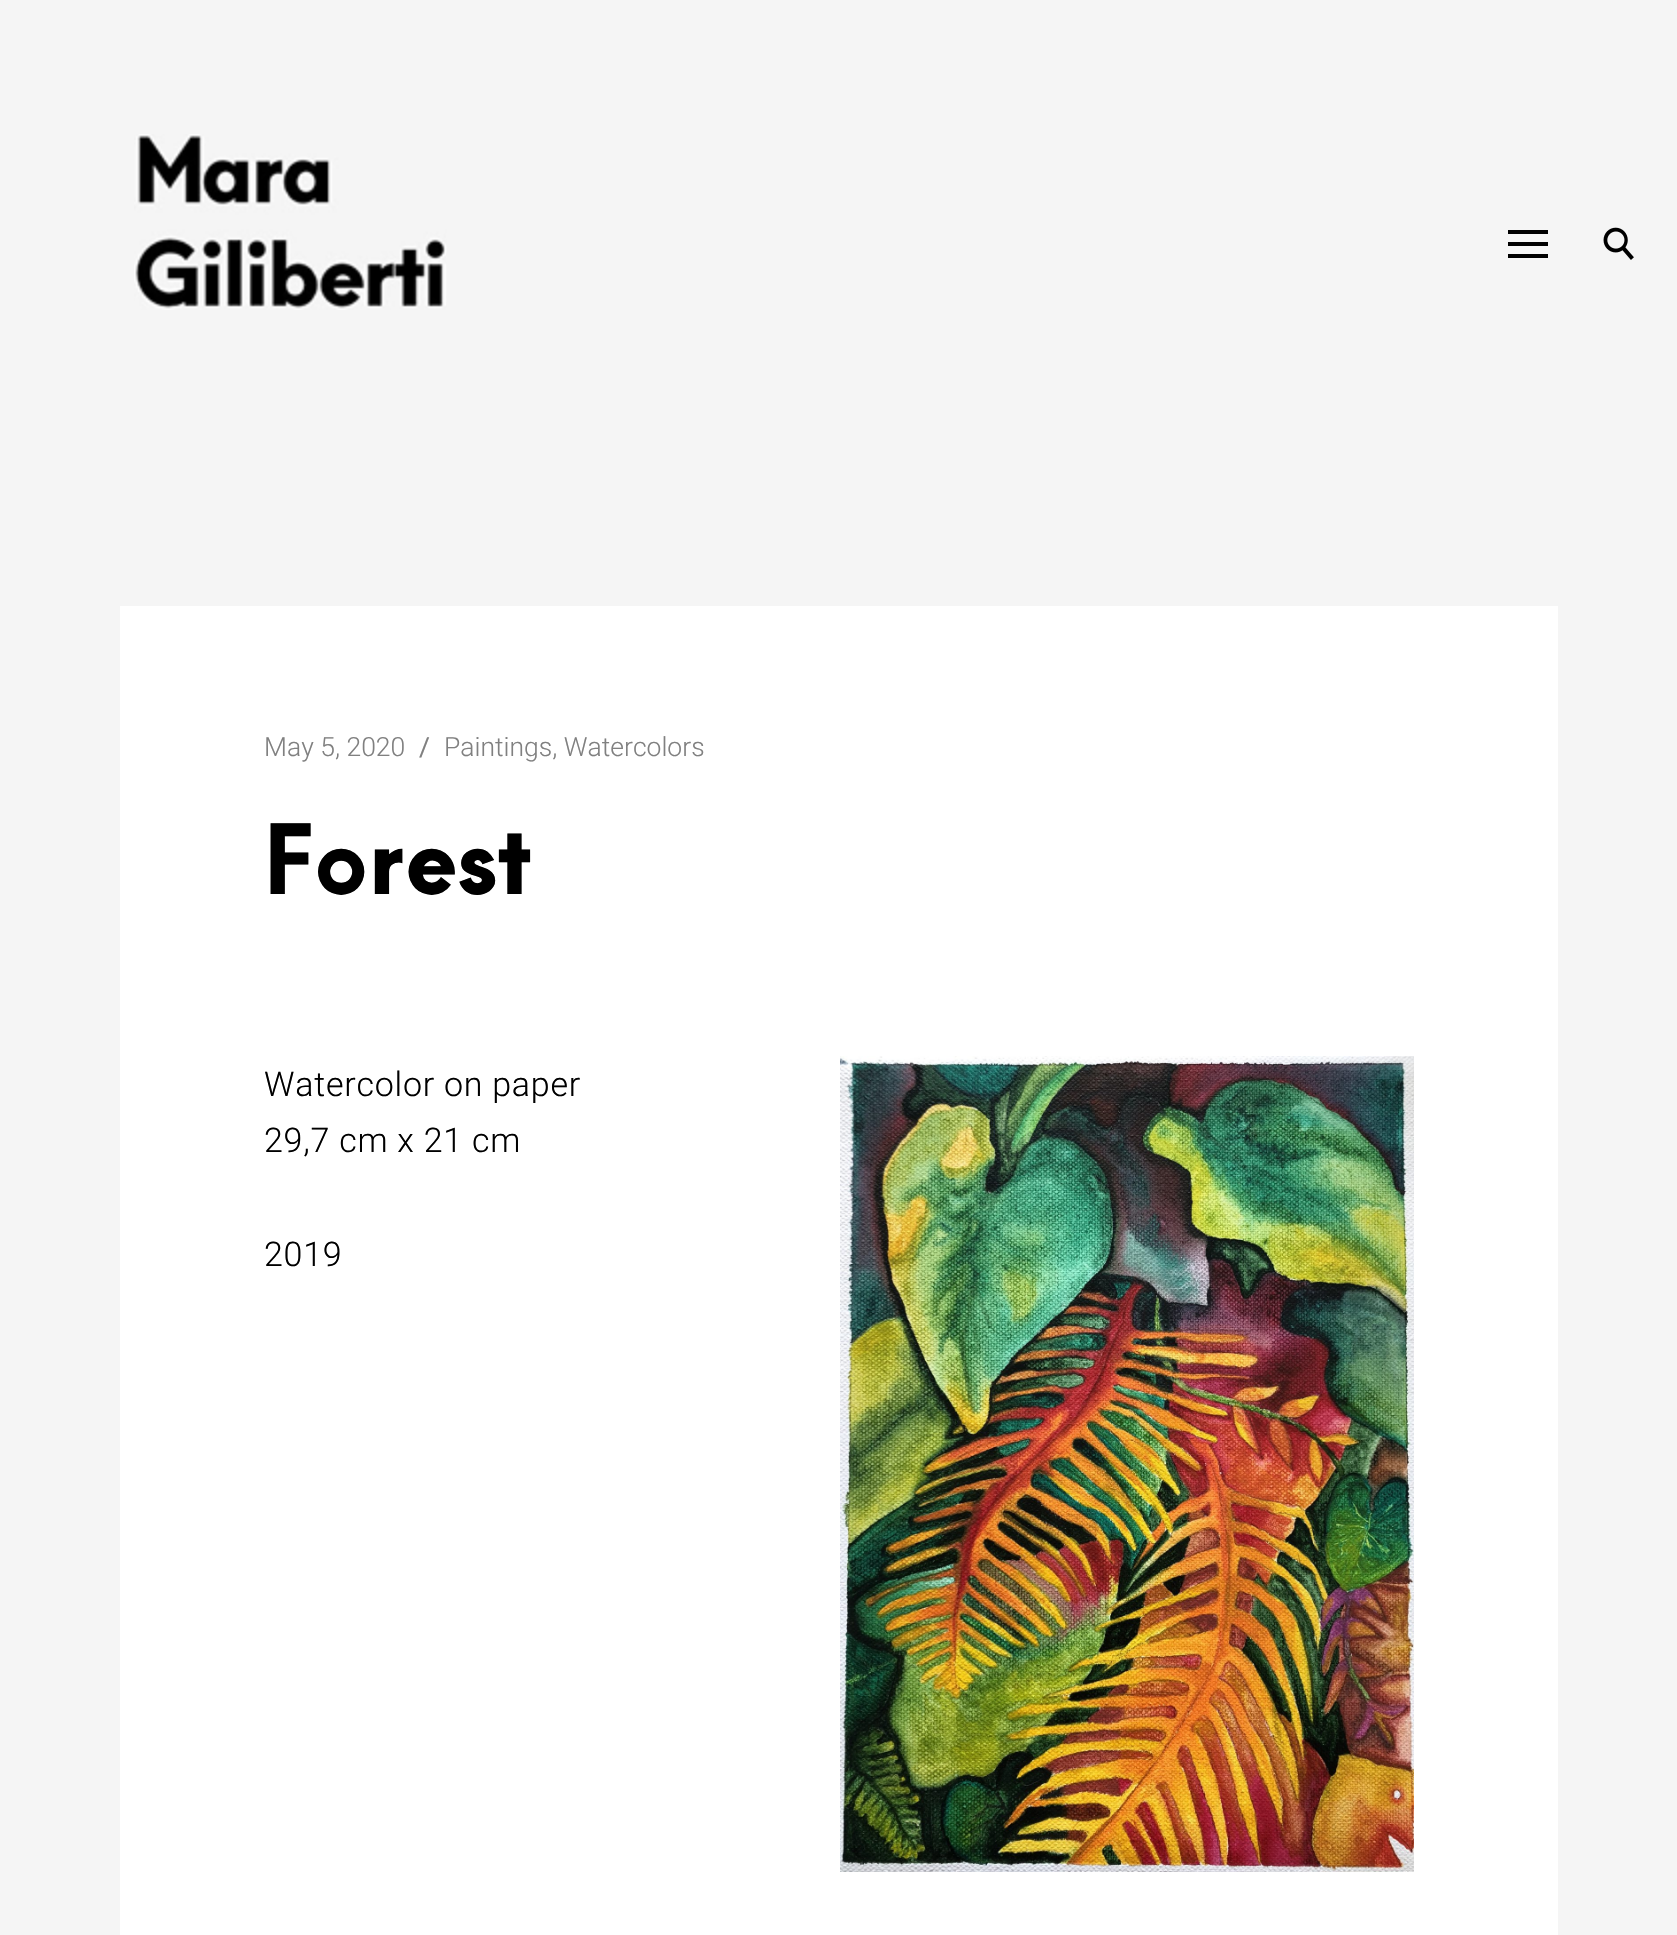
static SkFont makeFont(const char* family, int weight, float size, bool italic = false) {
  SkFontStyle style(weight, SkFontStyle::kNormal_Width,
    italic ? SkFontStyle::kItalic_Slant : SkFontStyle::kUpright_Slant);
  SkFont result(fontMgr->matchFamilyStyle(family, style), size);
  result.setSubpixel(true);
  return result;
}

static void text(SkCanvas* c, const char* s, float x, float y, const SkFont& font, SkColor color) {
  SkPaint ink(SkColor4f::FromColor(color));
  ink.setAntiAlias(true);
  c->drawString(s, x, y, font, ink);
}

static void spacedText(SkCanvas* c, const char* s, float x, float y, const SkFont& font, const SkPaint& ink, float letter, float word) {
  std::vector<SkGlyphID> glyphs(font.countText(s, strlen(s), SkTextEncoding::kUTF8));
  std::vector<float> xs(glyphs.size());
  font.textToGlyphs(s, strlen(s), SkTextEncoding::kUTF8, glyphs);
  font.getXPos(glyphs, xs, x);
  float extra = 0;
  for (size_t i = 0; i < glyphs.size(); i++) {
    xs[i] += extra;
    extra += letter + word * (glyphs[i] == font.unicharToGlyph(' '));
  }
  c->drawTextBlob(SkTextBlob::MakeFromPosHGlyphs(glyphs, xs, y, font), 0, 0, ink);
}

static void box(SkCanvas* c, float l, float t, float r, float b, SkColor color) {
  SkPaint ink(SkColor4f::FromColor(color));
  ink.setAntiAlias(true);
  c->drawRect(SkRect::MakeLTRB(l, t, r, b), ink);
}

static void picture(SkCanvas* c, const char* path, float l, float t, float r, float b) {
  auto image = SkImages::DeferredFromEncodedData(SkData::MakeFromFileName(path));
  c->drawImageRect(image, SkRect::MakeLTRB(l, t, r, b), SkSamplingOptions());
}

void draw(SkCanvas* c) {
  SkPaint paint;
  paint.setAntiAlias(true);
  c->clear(0xfff5f5f5);
  picture(c, "img_01.png", 134, 134, 447, 310);
  box(c, 1508, 242, 1548, 246, 0xff000000);
  box(c, 1508, 230, 1548, 234, 0xff000000);
  box(c, 1508, 254, 1548, 258, 0xff000000);
  picture(c, "img_02.png", 1603, 227, 1634, 260);
  box(c, 120, 606, 1558, 1935, 0xffffffff);
  SkFont face1 = makeFont("Roboto", 300, 26.5f);
  text(c, "May 5, 2020", 264, 756, face1, 0xff808080);
  SkFont face2 = makeFont("Roboto", 400, 26.5f);
  text(c, "/", 419, 756, face2, 0xff808080);
  text(c, "Paintings, Watercolors", 444, 756, face1, 0xff808080);
  SkFont face3 = makeFont("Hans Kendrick", 900, 94.5f);
  text(c, "Forest", 264, 894, face3, 0xff000000);
  SkFont face4 = makeFont("Roboto", 300, 34);
  paint.setColor(0xff000000);
  spacedText(c, "Watercolor on paper", 264, 1096, face4, paint, 0.75f, 0);
  picture(c, "img_03.png", 840, 1056, 1414, 1872);
  spacedText(c, "29,7 cm x 21 cm", 264, 1152, face4, paint, 0.75f, 0);
  spacedText(c, "2019", 264, 1266, face4, paint, 0.75f, 0);
}
